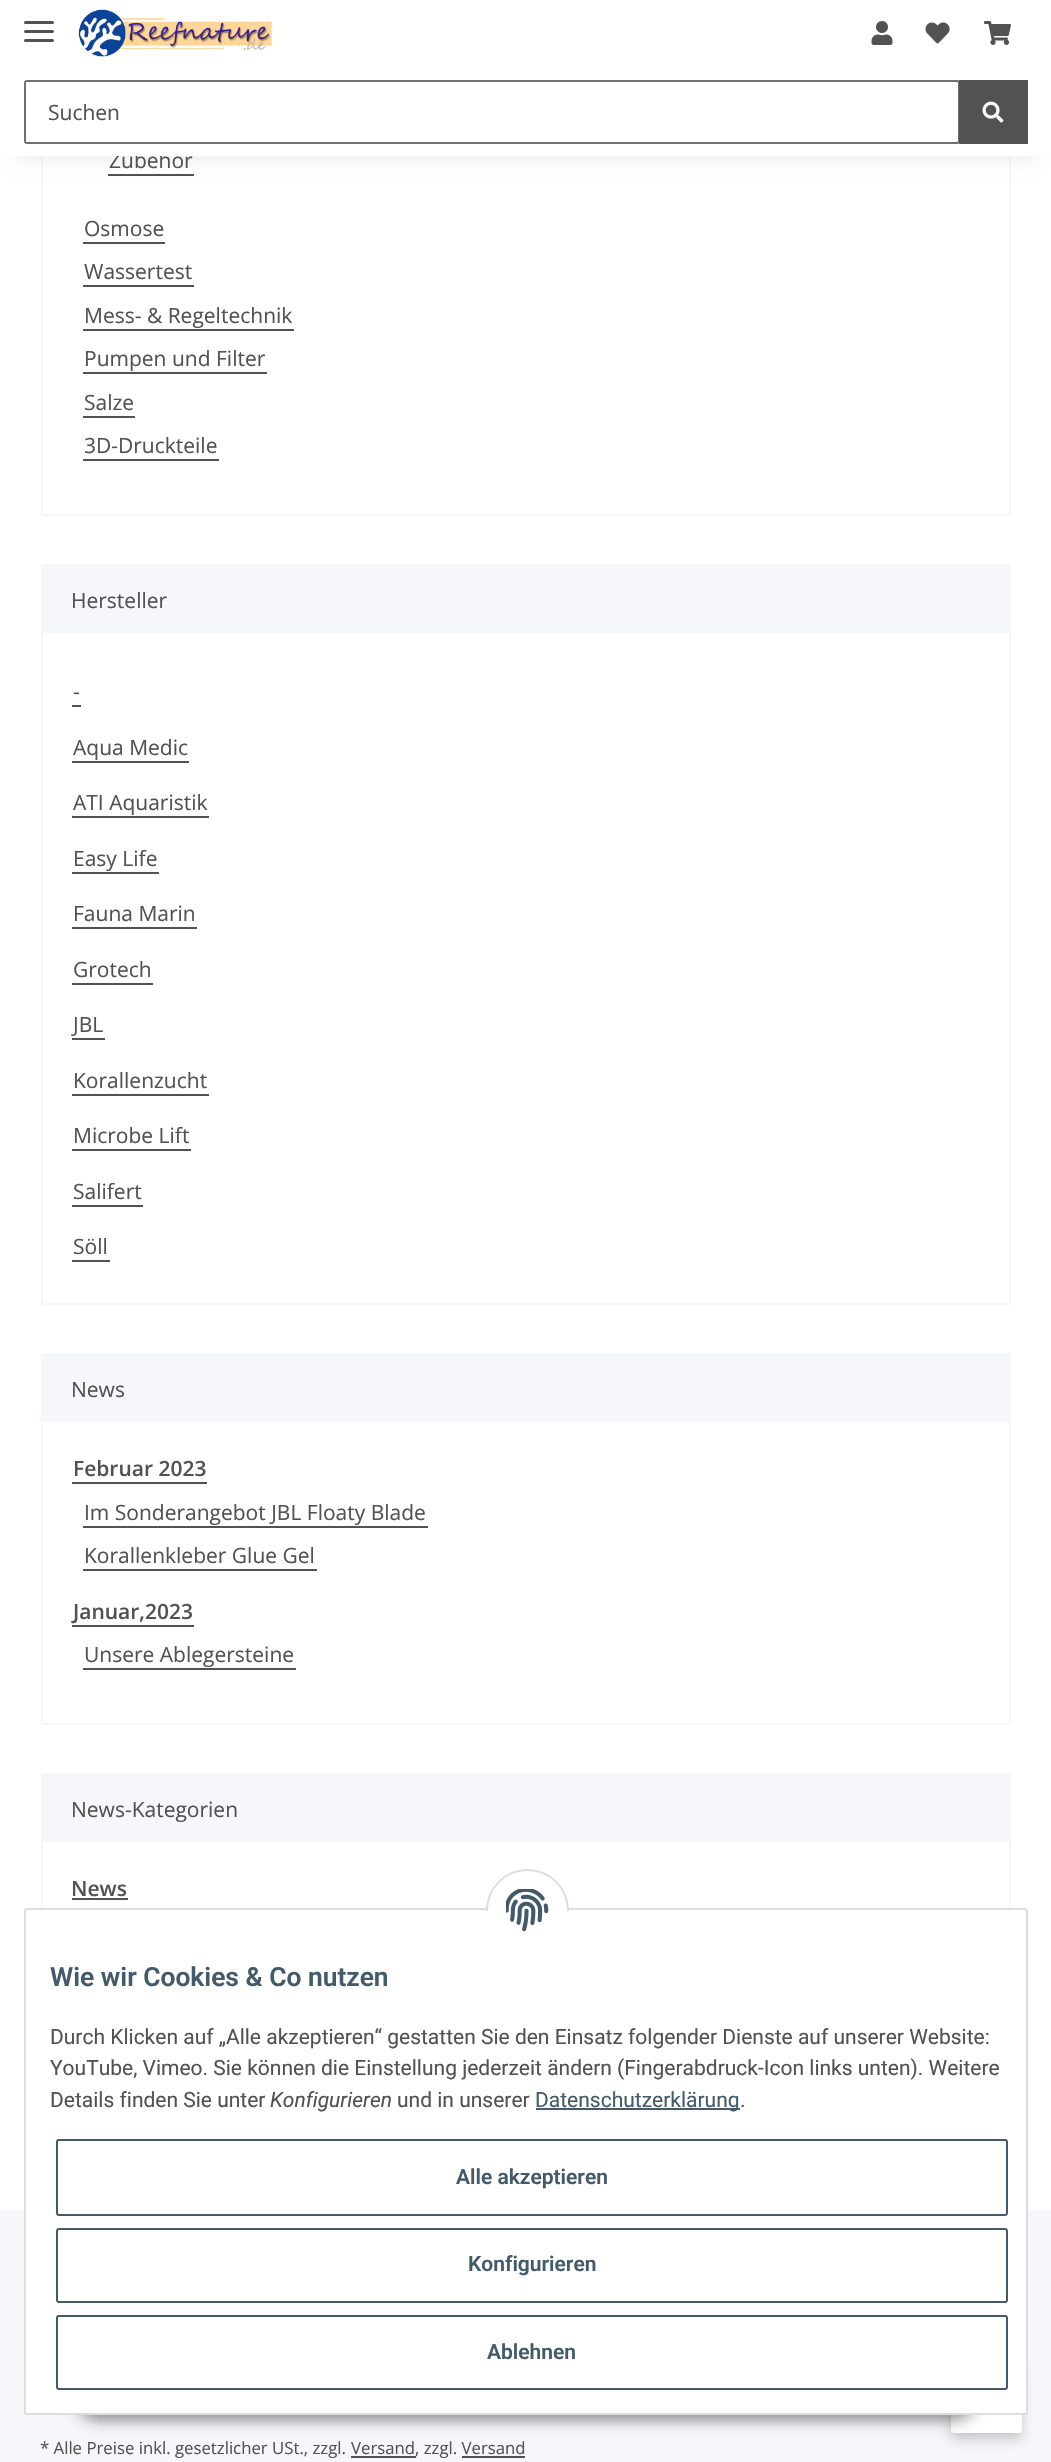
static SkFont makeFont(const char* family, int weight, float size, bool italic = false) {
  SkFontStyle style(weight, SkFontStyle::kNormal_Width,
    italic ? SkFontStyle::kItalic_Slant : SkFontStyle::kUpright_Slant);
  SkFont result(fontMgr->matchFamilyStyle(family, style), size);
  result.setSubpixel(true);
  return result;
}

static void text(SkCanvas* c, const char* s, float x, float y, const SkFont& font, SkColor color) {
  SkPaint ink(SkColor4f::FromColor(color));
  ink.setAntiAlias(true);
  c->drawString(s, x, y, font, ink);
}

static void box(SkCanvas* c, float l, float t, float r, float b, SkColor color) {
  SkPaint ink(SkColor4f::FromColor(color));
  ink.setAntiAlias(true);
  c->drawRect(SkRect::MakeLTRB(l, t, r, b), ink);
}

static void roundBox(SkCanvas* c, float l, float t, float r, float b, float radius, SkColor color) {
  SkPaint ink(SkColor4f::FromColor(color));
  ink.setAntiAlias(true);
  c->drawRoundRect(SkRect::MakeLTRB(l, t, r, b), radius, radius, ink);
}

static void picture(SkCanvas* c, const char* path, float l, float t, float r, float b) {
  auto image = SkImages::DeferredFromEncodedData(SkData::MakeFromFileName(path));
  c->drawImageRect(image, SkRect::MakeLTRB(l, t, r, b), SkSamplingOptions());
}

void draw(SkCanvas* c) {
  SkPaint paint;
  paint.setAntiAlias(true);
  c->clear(0xfff5f7fa);
  box(c, 0, 156, 1051, 2210, 0xffffffff);
  paint.setStyle(SkPaint::kStroke_Style);
  paint.setStrokeWidth(2);
  paint.setColor(0xfff5f7fa);
  c->drawRoundRect(SkRect::MakeLTRB(42, -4, 1010, 515), 2, 2, paint);
  box(c, 108, 174, 194, 176, 0xff525252);
  paint.setStyle(SkPaint::kFill_Style);
  paint.setColor(0x0f000000);
  paint.setMaskFilter(SkMaskFilter::MakeBlur(kNormal_SkBlurStyle, 7));
  c->drawRect(SkRect::MakeLTRB(18, 42, 1034, 162), paint);
  paint.setMaskFilter(nullptr);
  SkFont face1 = makeFont("Open Sans", 400, 21);
  text(c, "Zubehör", 109, 168, face1, 0xff525252);
  box(c, 0, 0, 1051, 156, 0xffffffff);
  roundBox(c, 24, 30, 54, 33, 1.5f, 0xff525252);
  roundBox(c, 24, 21, 54, 24, 1.5f, 0xff525252);
  roundBox(c, 24, 39, 54, 42, 1.5f, 0xff525252);
  picture(c, "img_01.png", 78, 9, 272, 57);
  picture(c, "img_02.png", 871, 21, 893, 45);
  picture(c, "img_03.png", 925, 22, 950, 44);
  picture(c, "img_04.png", 984, 21, 1011, 45);
  paint.setStyle(SkPaint::kStroke_Style);
  paint.setColor(0xff707070);
  c->drawRoundRect(SkRect::MakeLTRB(25, 81, 959, 143), 2, 2, paint);
  text(c, "Suchen", 48, 120, face1, 0xff525252);
  box(c, 959, 80, 1028, 144, 0xff525252);
  picture(c, "img_05.png", 982, 101, 1004, 123);
  text(c, "Osmose", 84, 236, face1, 0xff525252);
  box(c, 83, 242, 165, 244, 0xff525252);
  text(c, "Wassertest", 84, 279, face1, 0xff525252);
  box(c, 83, 285, 194, 287, 0xff525252);
  text(c, "Mess- & Regeltechnik", 84, 323, face1, 0xff525252);
  box(c, 83, 329, 294, 331, 0xff525252);
  text(c, "Pumpen und Filter", 84, 366, face1, 0xff525252);
  box(c, 83, 372, 267, 374, 0xff525252);
  text(c, "Salze", 84, 410, face1, 0xff525252);
  box(c, 83, 416, 135, 418, 0xff525252);
  text(c, "3D-Druckteile", 84, 453, face1, 0xff525252);
  box(c, 83, 459, 219, 461, 0xff525252);
  paint.setColor(0xfff5f7fa);
  c->drawRoundRect(SkRect::MakeLTRB(42, 565, 1010, 1304), 2, 2, paint);
  paint.setStyle(SkPaint::kFill_Style);
  c->drawPath(SkPathBuilder().moveTo(43.5f, 566).lineTo(1008.5f, 566).cubicTo(1009.5f, 566, 1010, 566.5f, 1010, 567.5f).lineTo(1010, 633).lineTo(42, 633).lineTo(42, 567.5f).cubicTo(42, 566.5f, 42.5f, 566, 43.5f, 566).close().detach(), paint);
  text(c, "Hersteller", 71, 608, face1, 0xff525252);
  text(c, "-", 73, 699, face1, 0xff525252);
  box(c, 72, 705, 81, 707, 0xff525252);
  text(c, "Aqua Medic", 73, 755, face1, 0xff525252);
  box(c, 72, 761, 189, 763, 0xff525252);
  text(c, "ATI Aquaristik", 73, 810, face1, 0xff525252);
  box(c, 72, 816, 209, 818, 0xff525252);
  text(c, "Easy Life", 73, 866, face1, 0xff525252);
  box(c, 72, 872, 159, 874, 0xff525252);
  text(c, "Fauna Marin", 73, 921, face1, 0xff525252);
  box(c, 72, 927, 197, 929, 0xff525252);
  text(c, "Grotech", 73, 977, face1, 0xff525252);
  box(c, 72, 983, 153, 985, 0xff525252);
  text(c, "JBL", 73, 1032, face1, 0xff525252);
  box(c, 72, 1038, 105, 1040, 0xff525252);
  text(c, "Korallenzucht", 73, 1088, face1, 0xff525252);
  box(c, 72, 1094, 209, 1096, 0xff525252);
  text(c, "Microbe Lift", 73, 1143, face1, 0xff525252);
  box(c, 72, 1149, 191, 1151, 0xff525252);
  text(c, "Salifert", 73, 1199, face1, 0xff525252);
  box(c, 72, 1205, 143, 1207, 0xff525252);
  text(c, "Söll", 73, 1254, face1, 0xff525252);
  box(c, 72, 1260, 110, 1262, 0xff525252);
  paint.setStyle(SkPaint::kStroke_Style);
  c->drawRoundRect(SkRect::MakeLTRB(42, 1354, 1010, 1724), 2, 2, paint);
  paint.setStyle(SkPaint::kFill_Style);
  c->drawPath(SkPathBuilder().moveTo(43.5f, 1355).lineTo(1008.5f, 1355).cubicTo(1009.5f, 1355, 1010, 1355.5f, 1010, 1356.5f).lineTo(1010, 1422).lineTo(42, 1422).lineTo(42, 1356.5f).cubicTo(42, 1355.5f, 42.5f, 1355, 43.5f, 1355).close().detach(), paint);
  text(c, "News", 71, 1397, face1, 0xff525252);
  SkFont face2 = makeFont("Open Sans", 600, 21);
  text(c, "Februar 2023", 73, 1476, face2, 0xff525252);
  box(c, 72, 1482, 207, 1484, 0xff525252);
  text(c, "Im Sonderangebot JBL Floaty Blade", 84, 1520, face1, 0xff525252);
  box(c, 83, 1526, 428, 1528, 0xff525252);
  text(c, "Korallenkleber Glue Gel", 84, 1563, face1, 0xff525252);
  box(c, 83, 1569, 317, 1571, 0xff525252);
  text(c, "Januar,2023", 73, 1619, face2, 0xff525252);
  box(c, 72, 1625, 194, 1627, 0xff525252);
  text(c, "Unsere Ablegersteine", 84, 1662, face1, 0xff525252);
  box(c, 83, 1668, 296, 1670, 0xff525252);
  paint.setStyle(SkPaint::kStroke_Style);
  c->drawRoundRect(SkRect::MakeLTRB(42, 1774, 1010, 2089), 2, 2, paint);
  paint.setStyle(SkPaint::kFill_Style);
  c->drawPath(SkPathBuilder().moveTo(43.5f, 1775).lineTo(1008.5f, 1775).cubicTo(1009.5f, 1775, 1010, 1775.5f, 1010, 1776.5f).lineTo(1010, 1842).lineTo(42, 1842).lineTo(42, 1776.5f).cubicTo(42, 1775.5f, 42.5f, 1775, 43.5f, 1775).close().detach(), paint);
  text(c, "News-Kategorien", 71, 1817, face1, 0xff525252);
  text(c, "News", 71, 1896, face2, 0xff525252);
  box(c, 72, 1898, 128, 1900, 0xff525252);
  paint.setColor(0x33000000);
  paint.setMaskFilter(SkMaskFilter::MakeBlur(kNormal_SkBlurStyle, 6));
  c->drawRoundRect(SkRect::MakeLTRB(951, 2373, 1022, 2439), 3, 3, paint);
  paint.setMaskFilter(nullptr);
  roundBox(c, 951, 2367, 1022, 2433, 3, 0xffffffff);
  paint.setColor(0x73000000);
  paint.setMaskFilter(SkMaskFilter::MakeBlur(kNormal_SkBlurStyle, 7.5f));
  c->drawRoundRect(SkRect::MakeLTRB(75, 2372, 977, 2420), 24, 24, paint);
  paint.setMaskFilter(nullptr);
  paint.setColor(0xffffffff);
  c->drawRoundRect(SkRect::MakeLTRB(25, 1909, 1027, 2414), 2, 2, paint);
  paint.setStyle(SkPaint::kStroke_Style);
  paint.setColor(0xffdddddd);
  c->drawRoundRect(SkRect::MakeLTRB(25, 1909, 1027, 2414), 2, 2, paint);
  paint.setStyle(SkPaint::kFill_Style);
  paint.setColor(0xffffffff);
  c->drawCircle(527.5f, 1910.5f, 40.5f, paint);
  paint.setStyle(SkPaint::kStroke_Style);
  paint.setColor(0xffdddddd);
  c->drawCircle(527.5f, 1910.5f, 40.5f, paint);
  box(c, 486, 1911, 569, 1952, 0xffffffff);
  picture(c, "img_06.png", 506, 1889, 549, 1932);
  SkFont face3 = makeFont("Roboto", 600, 26.4f);
  text(c, "Wie wir Cookies & Co nutzen", 50, 1986, face3, 0xff435a6b);
  SkFont face4 = makeFont("Roboto", 400, 21);
  text(c, "Durch Klicken auf „Alle akzeptieren“ gestatten Sie den Einsatz folgender Dienste auf unserer Website:", 50, 2044, face4, 0xff525252);
  text(c, "YouTube, Vimeo. Sie können die Einstellung jederzeit ändern (Fingerabdruck-Icon links unten). Weitere", 50, 2075, face4, 0xff525252);
  text(c, "Details finden Sie unter", 50, 2107, face4, 0xff525252);
  SkFont face5 = makeFont("Roboto", 400, 21, true);
  text(c, "Konfigurieren", 270, 2107, face5, 0xff525252);
  text(c, "und in unserer", 397, 2107, face4, 0xff525252);
  box(c, 536, 2108, 740, 2110, 0xff435a6b);
  text(c, "Datenschutzerklärung", 535, 2107, face4, 0xff435a6b);
  text(c, ".", 740, 2107, face4, 0xff525252);
  paint.setColor(0xff435a6b);
  c->drawRoundRect(SkRect::MakeLTRB(57, 2140, 1007, 2215), 2, 2, paint);
  SkFont face6 = makeFont("Roboto", 600, 21);
  text(c, "Alle akzeptieren", 456, 2184, face6, 0xff435a6b);
  c->drawRoundRect(SkRect::MakeLTRB(57, 2229, 1007, 2302), 2, 2, paint);
  text(c, "Konfigurieren", 468, 2271, face6, 0xff435a6b);
  c->drawRoundRect(SkRect::MakeLTRB(57, 2316, 1007, 2389), 2, 2, paint);
  text(c, "Ablehnen", 487, 2359, face6, 0xff435a6b);
  SkFont face7 = makeFont("Open Sans", 400, 16.75f);
  text(c, "* Alle Preise inkl. gesetzlicher USt., zzgl.", 40, 2454, face7, 0xff525252);
  box(c, 351, 2456, 416, 2458, 0xff525252);
  text(c, "Versand, zzgl. Versand", 351, 2454, face7, 0xff525252);
  box(c, 462, 2456, 525, 2458, 0xff525252);
}
